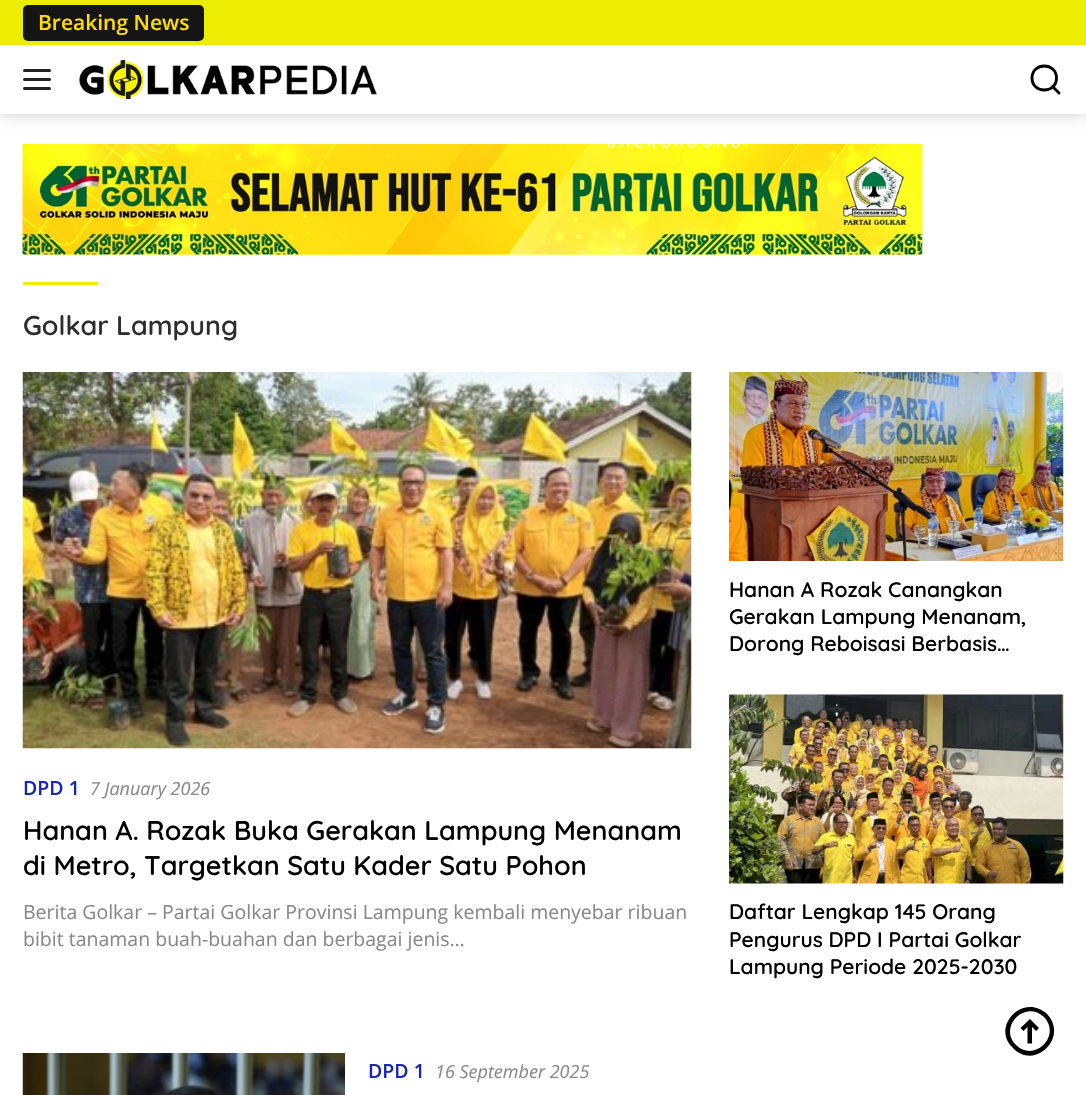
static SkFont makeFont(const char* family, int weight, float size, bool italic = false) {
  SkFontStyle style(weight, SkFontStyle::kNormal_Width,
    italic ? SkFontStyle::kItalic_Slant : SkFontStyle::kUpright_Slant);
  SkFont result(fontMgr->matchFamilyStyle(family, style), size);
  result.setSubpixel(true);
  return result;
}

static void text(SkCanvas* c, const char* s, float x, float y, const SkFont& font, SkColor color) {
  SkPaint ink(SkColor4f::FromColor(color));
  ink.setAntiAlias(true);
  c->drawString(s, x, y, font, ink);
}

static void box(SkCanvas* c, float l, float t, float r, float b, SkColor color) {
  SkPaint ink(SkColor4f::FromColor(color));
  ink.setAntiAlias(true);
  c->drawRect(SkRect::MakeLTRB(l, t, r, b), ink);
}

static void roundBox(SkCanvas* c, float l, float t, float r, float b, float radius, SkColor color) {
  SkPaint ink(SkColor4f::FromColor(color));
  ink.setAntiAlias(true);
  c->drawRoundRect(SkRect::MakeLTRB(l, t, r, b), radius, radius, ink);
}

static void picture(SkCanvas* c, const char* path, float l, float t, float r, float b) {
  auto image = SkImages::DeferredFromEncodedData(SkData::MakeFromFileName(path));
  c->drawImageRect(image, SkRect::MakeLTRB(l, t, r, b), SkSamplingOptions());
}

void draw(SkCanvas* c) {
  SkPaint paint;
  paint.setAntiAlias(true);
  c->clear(0xffffffff);
  paint.setColor(0x33000000);
  paint.setMaskFilter(SkMaskFilter::MakeBlur(kNormal_SkBlurStyle, 7.5f));
  c->drawRect(SkRect::MakeLTRB(0, 0, 1086, 114), paint);
  paint.setMaskFilter(nullptr);
  box(c, 0, 45, 1086, 114, 0xffffffff);
  box(c, 0, 0, 1086, 45, 0xffeded04);
  roundBox(c, 23, 5, 204, 41, 5, 0xff151515);
  SkFont face1 = makeFont("Open Sans", 600, 21);
  text(c, "Breaking News", 38, 30, face1, 0xffffdd00);
  roundBox(c, 23, 69, 51, 72, 1.5f, 0xff222222);
  roundBox(c, 23, 78, 51, 81, 1.5f, 0xff222222);
  roundBox(c, 23, 87, 51, 90, 1.5f, 0xff222222);
  picture(c, "img_01.png", 79, 60, 377, 99);
  paint.setStyle(SkPaint::kStroke_Style);
  paint.setStrokeWidth(2.9f);
  paint.setStrokeCap(SkPaint::kRound_Cap);
  paint.setColor(0xff000000);
  c->drawPath(SkPathBuilder().moveTo(1059, 93).lineTo(1052.5f, 86.5f).moveTo(1056.5f, 78).cubicTo(1056.5f, 94, 1032, 94, 1032, 78).cubicTo(1032, 62, 1056.5f, 62, 1056.5f, 78).close().detach(), paint);
  picture(c, "img_02.png", 22, 144, 923, 255);
  box(c, 23, 282, 98, 285, 0xffeded04);
  SkFont face2 = makeFont("Quicksand", 600, 27);
  text(c, "Golkar Lampung", 23, 335, face2, 0xff2d2d2d);
  picture(c, "img_03.png", 22, 372, 692, 749);
  SkFont face3 = makeFont("Open Sans", 600, 19.5f);
  text(c, "DPD 1", 23, 795, face3, 0xff1727b5);
  SkFont face4 = makeFont("Open Sans", 400, 18, true);
  text(c, "7 January 2026", 90, 795, face4, 0xff888888);
  text(c, "Hanan A. Rozak Buka Gerakan Lampung Menanam", 23, 840, face2, 0xff000000);
  text(c, "di Metro, Targetkan Satu Kader Satu Pohon", 23, 875, face2, 0xff000000);
  SkFont face5 = makeFont("Open Sans", 400, 19.5f);
  text(c, "Berita Golkar – Partai Golkar Provinsi Lampung kembali menyebar ribuan", 23, 919, face5, 0xff888888);
  text(c, "bibit tanaman buah-buahan dan berbagai jenis…", 23, 946, face5, 0xff888888);
  picture(c, "img_04.png", 729, 372, 1064, 561);
  SkFont face6 = makeFont("Quicksand", 600, 21);
  text(c, "Hanan A Rozak Canangkan", 729, 597, face6, 0xff000000);
  text(c, "Gerakan Lampung Menanam,", 729, 624, face6, 0xff000000);
  text(c, "Dorong Reboisasi Berbasis…", 729, 651, face6, 0xff000000);
  picture(c, "img_05.png", 729, 694, 1064, 884);
  text(c, "Daftar Lengkap 145 Orang", 729, 919, face6, 0xff000000);
  text(c, "Pengurus DPD I Partai Golkar", 729, 947, face6, 0xff000000);
  text(c, "Lampung Periode 2025-2030", 729, 974, face6, 0xff000000);
  picture(c, "img_06.png", 22, 1053, 345, 1095);
  text(c, "DPD 1", 368, 1078, face3, 0xff1727b5);
  text(c, "16 September 2025", 435, 1078, face4, 0xff888888);
  paint.setStyle(SkPaint::kFill_Style);
  c->drawPath(SkPathBuilder().moveTo(1036, 1031).lineTo(1039, 1028).lineTo(1030, 1019).lineTo(1020.5f, 1028).lineTo(1023.5f, 1031).lineTo(1027.5f, 1027).lineTo(1027.5f, 1043.5f).lineTo(1032, 1043.5f).lineTo(1032, 1027).close().detach(), paint);
  c->drawPath(SkPathBuilder(SkPathFillType::kEvenOdd).moveTo(1047, 1014).cubicTo(1024, 992, 990, 1026, 1013, 1048).cubicTo(1035, 1071, 1069, 1037, 1047, 1014).close().moveTo(1044, 1017).cubicTo(1025, 999, 998, 1027, 1016, 1045).cubicTo(1034, 1063, 1062, 1036, 1044, 1017).close().detach(), paint);
}
